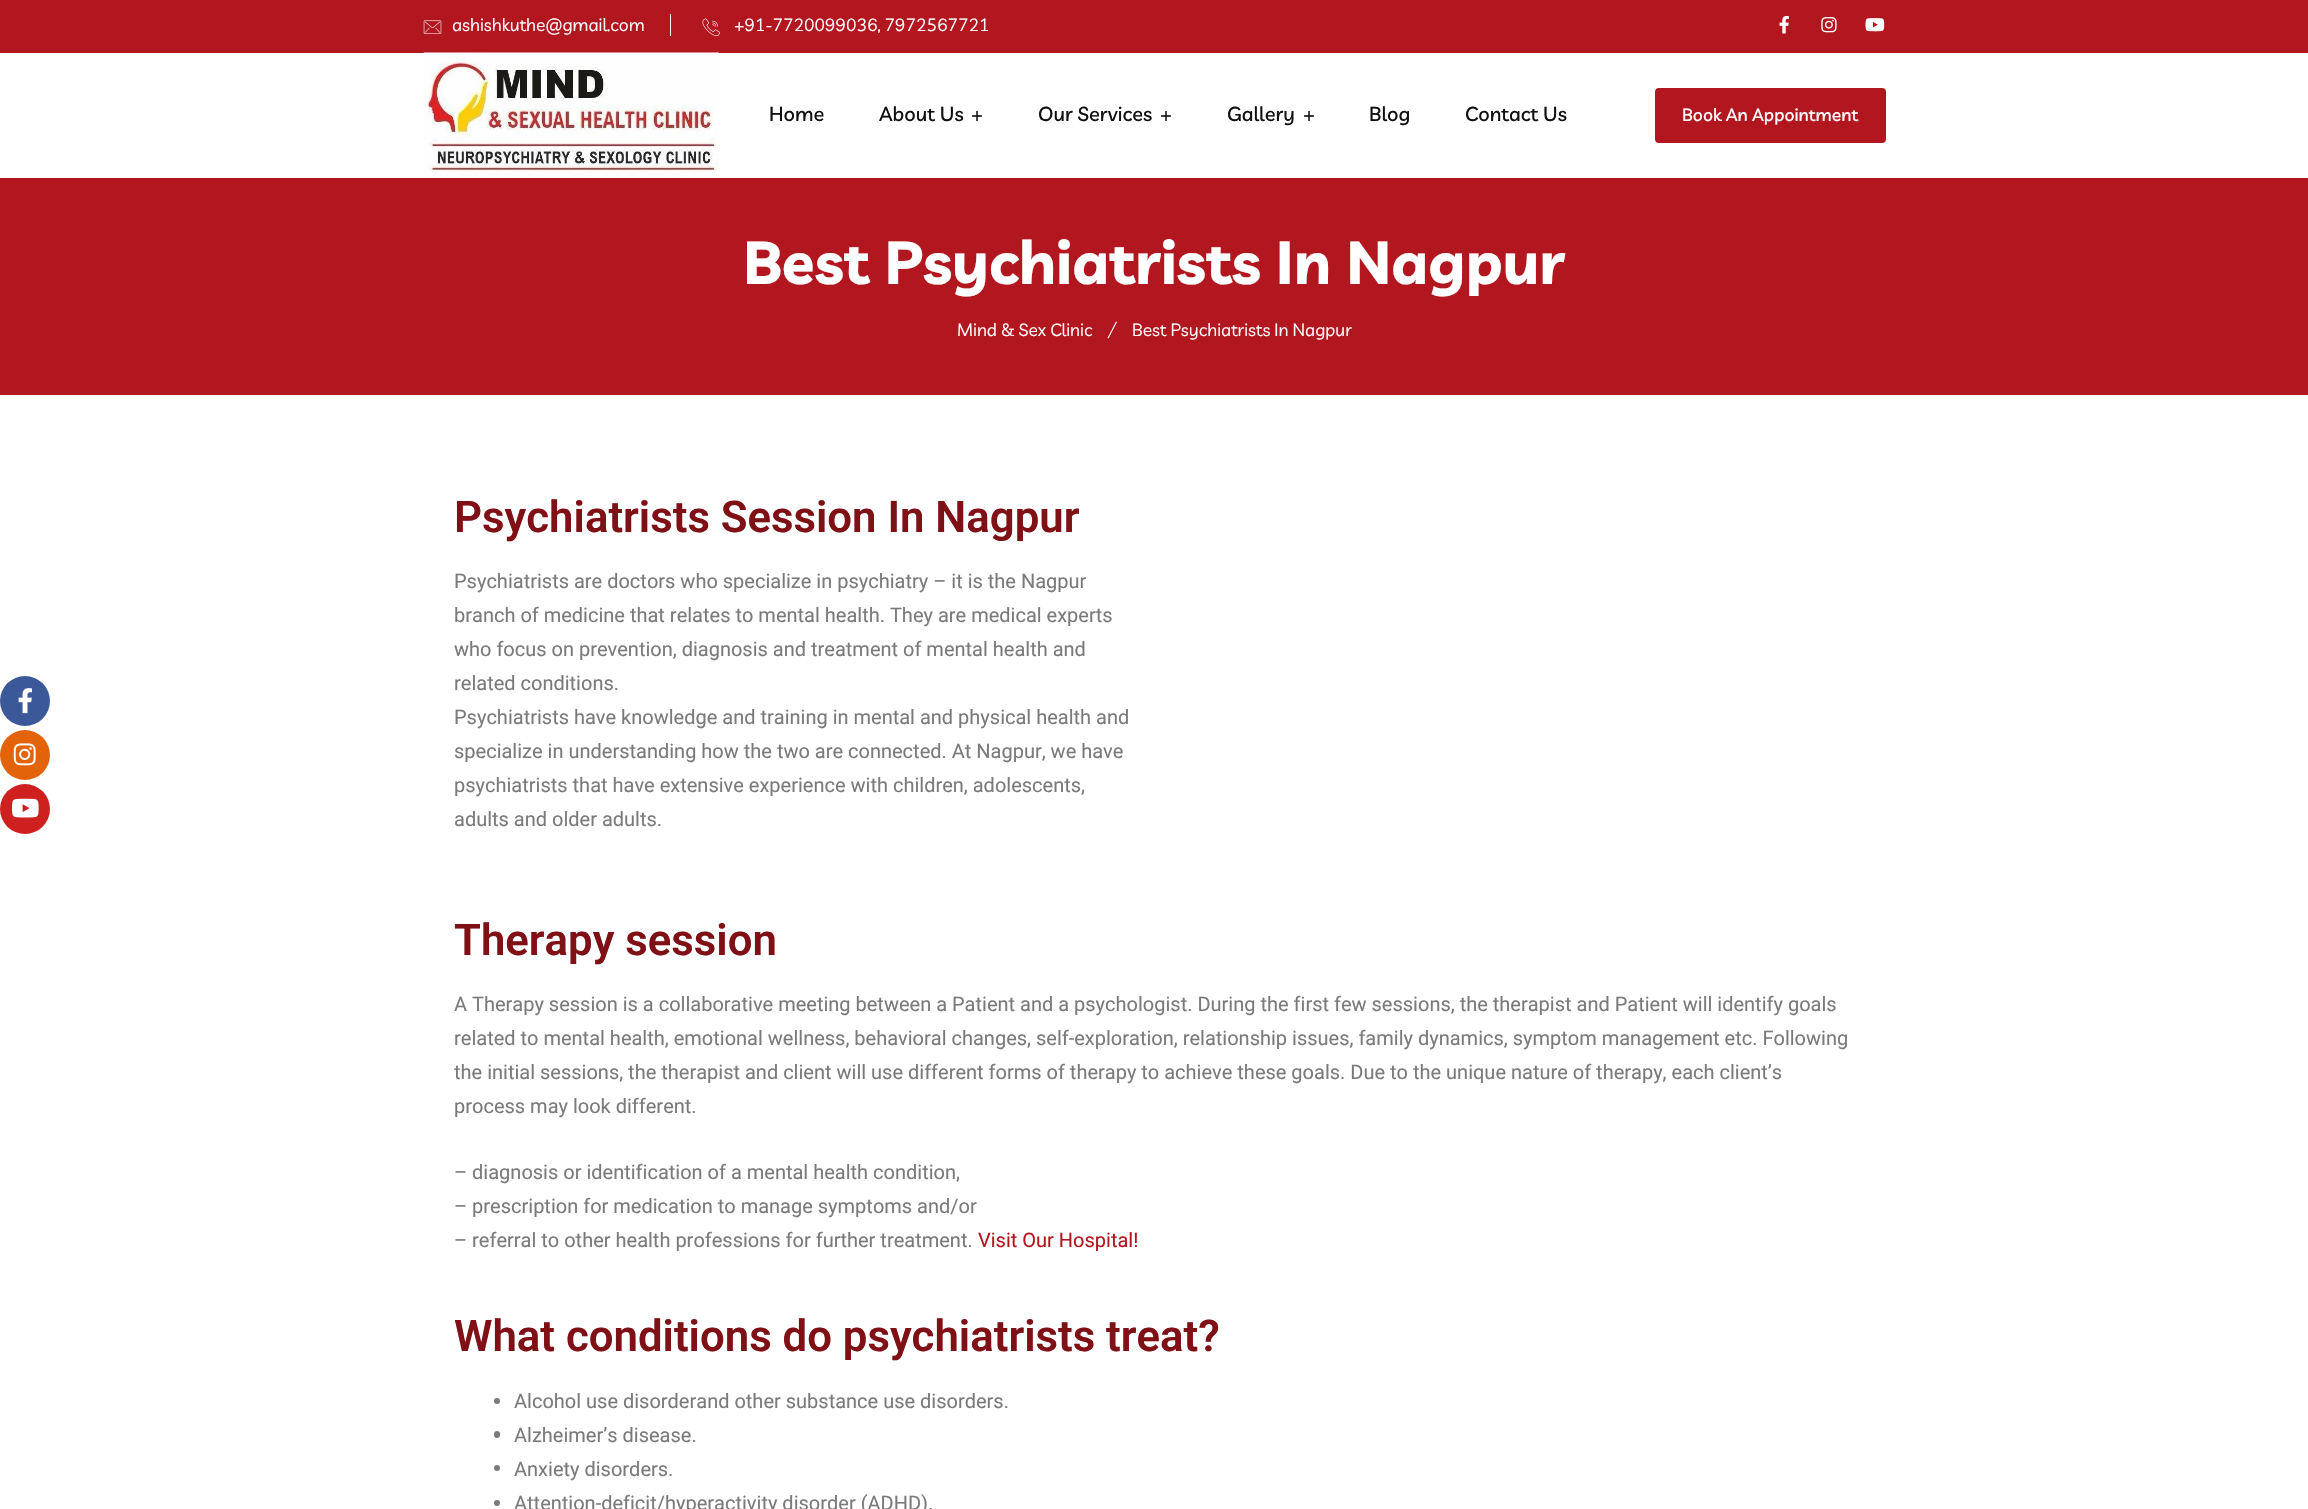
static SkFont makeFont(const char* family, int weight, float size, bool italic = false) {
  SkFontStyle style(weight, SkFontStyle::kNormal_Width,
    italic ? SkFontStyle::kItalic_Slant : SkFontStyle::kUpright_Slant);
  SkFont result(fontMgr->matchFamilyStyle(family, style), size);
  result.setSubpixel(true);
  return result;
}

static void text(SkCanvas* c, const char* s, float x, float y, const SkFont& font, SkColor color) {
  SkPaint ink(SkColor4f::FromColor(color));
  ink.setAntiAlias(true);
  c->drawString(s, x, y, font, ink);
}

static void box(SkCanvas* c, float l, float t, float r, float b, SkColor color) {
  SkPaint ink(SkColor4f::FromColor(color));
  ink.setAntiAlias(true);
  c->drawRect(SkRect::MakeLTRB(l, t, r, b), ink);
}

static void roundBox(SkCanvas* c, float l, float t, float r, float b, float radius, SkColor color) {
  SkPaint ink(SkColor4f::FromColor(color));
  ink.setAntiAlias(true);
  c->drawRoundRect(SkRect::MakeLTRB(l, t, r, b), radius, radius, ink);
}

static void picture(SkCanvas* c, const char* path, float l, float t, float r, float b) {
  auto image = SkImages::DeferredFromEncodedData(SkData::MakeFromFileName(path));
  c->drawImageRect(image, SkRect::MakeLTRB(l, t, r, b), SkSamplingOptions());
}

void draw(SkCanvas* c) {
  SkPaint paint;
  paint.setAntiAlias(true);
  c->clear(0xffffffff);
  box(c, 0, 0, 2308, 53, 0xffb2171f);
  picture(c, "img_01.png", 423, 20, 442, 34);
  SkFont face1 = makeFont("Livvic", 400, 17.5f);
  text(c, "ashishkuthe@gmail.com", 452, 31, face1, 0xffffffff);
  box(c, 670, 14, 671, 36, 0xffffffff);
  picture(c, "img_02.png", 702, 18, 720, 36);
  text(c, "+91-7720099036, 7972567721", 734, 31, face1, 0xffffffff);
  picture(c, "img_03.png", 1779, 15, 1789, 34);
  picture(c, "img_04.png", 1821, 17, 1837, 33);
  picture(c, "img_05.png", 1865, 18, 1885, 32);
  picture(c, "img_06.png", 423, 52, 719, 176);
  SkFont face2 = makeFont("Livvic", 500, 20);
  text(c, "Home", 769, 121, face2, 0xff101010);
  text(c, "About Us", 879, 121, face2, 0xff101010);
  SkFont face3 = makeFont("Livvic", 400, 20);
  text(c, "+", 971, 121, face3, 0xff101010);
  text(c, "Our Services", 1038, 121, face2, 0xff101010);
  text(c, "+", 1160, 121, face3, 0xff101010);
  text(c, "Gallery", 1227, 121, face2, 0xff101010);
  text(c, "+", 1303, 121, face3, 0xff101010);
  text(c, "Blog", 1369, 121, face2, 0xff101010);
  text(c, "Contact Us", 1465, 121, face2, 0xff101010);
  roundBox(c, 1655, 88, 1886, 143, 4, 0xffb2171f);
  SkFont face4 = makeFont("Livvic", 500, 17.5f);
  text(c, "Book An Appointment", 1682, 121, face4, 0xffffffff);
  box(c, 0, 178, 2308, 395, 0xffb2171f);
  SkFont face5 = makeFont("Livvic", 700, 60);
  text(c, "Best Psychiatrists In Nagpur", 743, 284, face5, 0xffffffff);
  text(c, "Mind & Sex Clinic", 957, 336, face1, 0xffffffff);
  paint.setColor(0xffffffff);
  c->drawPath(SkPathBuilder().moveTo(1116, 321.5f).lineTo(1117, 322).lineTo(1108.5f, 338.5f).lineTo(1107.5f, 338).close().detach(), paint);
  text(c, "Best Psychiatrists In Nagpur", 1132, 336, face1, 0xffffffff);
  paint.setColor(0xff3b5998);
  c->drawCircle(25, 701, 25, paint);
  picture(c, "img_07.png", 18, 688, 32, 714);
  paint.setColor(0xffe2630a);
  c->drawCircle(25, 755, 25, paint);
  picture(c, "img_08.png", 13, 743, 36, 766);
  paint.setColor(0xffcd201f);
  c->drawCircle(25, 809, 25, paint);
  picture(c, "img_09.png", 12, 798, 39, 818);
  SkFont face6 = makeFont("Roboto", 600, 43.75f);
  text(c, "Psychiatrists Session In Nagpur", 454, 532, face6, 0xff7e1016);
  SkFont face7 = makeFont("Roboto", 400, 20);
  text(c, "Psychiatrists are doctors who specialize in psychiatry – it is the Nagpur", 454, 588, face7, 0xff7a7a7a);
  text(c, "branch of medicine that relates to mental health. They are medical experts", 454, 622, face7, 0xff7a7a7a);
  text(c, "who focus on prevention, diagnosis and treatment of mental health and", 454, 656, face7, 0xff7a7a7a);
  text(c, "related conditions.", 454, 690, face7, 0xff7a7a7a);
  text(c, "Psychiatrists have knowledge and training in mental and physical health and", 454, 724, face7, 0xff7a7a7a);
  text(c, "specialize in understanding how the two are connected. At Nagpur, we have", 454, 758, face7, 0xff7a7a7a);
  text(c, "psychiatrists that have extensive experience with children, adolescents,", 454, 792, face7, 0xff7a7a7a);
  text(c, "adults and older adults.", 454, 826, face7, 0xff7a7a7a);
  text(c, "Therapy session", 454, 955, face6, 0xff7e1016);
  text(c, "A Therapy session is a collaborative meeting between a Patient and a psychologist. During the first few sessions, the therapist and Patient will identify goals", 454, 1011, face7, 0xff7a7a7a);
  text(c, "related to mental health, emotional wellness, behavioral changes, self-exploration, relationship issues, family dynamics, symptom management etc. Following", 454, 1045, face7, 0xff7a7a7a);
  text(c, "the initial sessions, the therapist and client will use different forms of therapy to achieve these goals. Due to the unique nature of therapy, each client’s", 454, 1079, face7, 0xff7a7a7a);
  text(c, "process may look different.", 454, 1113, face7, 0xff7a7a7a);
  text(c, "– diagnosis or identification of a mental health condition,", 454, 1179, face7, 0xff7a7a7a);
  text(c, "– prescription for medication to manage symptoms and/or", 454, 1213, face7, 0xff7a7a7a);
  text(c, "– referral to other health professions for further treatment.", 454, 1247, face7, 0xff7a7a7a);
  text(c, "Visit Our Hospital!", 978, 1247, face7, 0xffb2171f);
  text(c, "What conditions do psychiatrists treat?", 454, 1351, face6, 0xff7e1016);
  paint.setColor(0xff7a7a7a);
  c->drawCircle(497, 1401, 3, paint);
  text(c, "Alcohol use disorderand other substance use disorders.", 514, 1408, face7, 0xff7a7a7a);
  roundBox(c, 494, 1431, 500, 1438, 3, 0xff7a7a7a);
  text(c, "Alzheimer’s disease.", 514, 1442, face7, 0xff7a7a7a);
  c->drawCircle(497, 1468, 3, paint);
  text(c, "Anxiety disorders.", 514, 1476, face7, 0xff7a7a7a);
  c->drawCircle(497, 1503, 3, paint);
  text(c, "Attention-deficit/hyperactivity disorder (ADHD).", 514, 1510, face7, 0xff7a7a7a);
}
